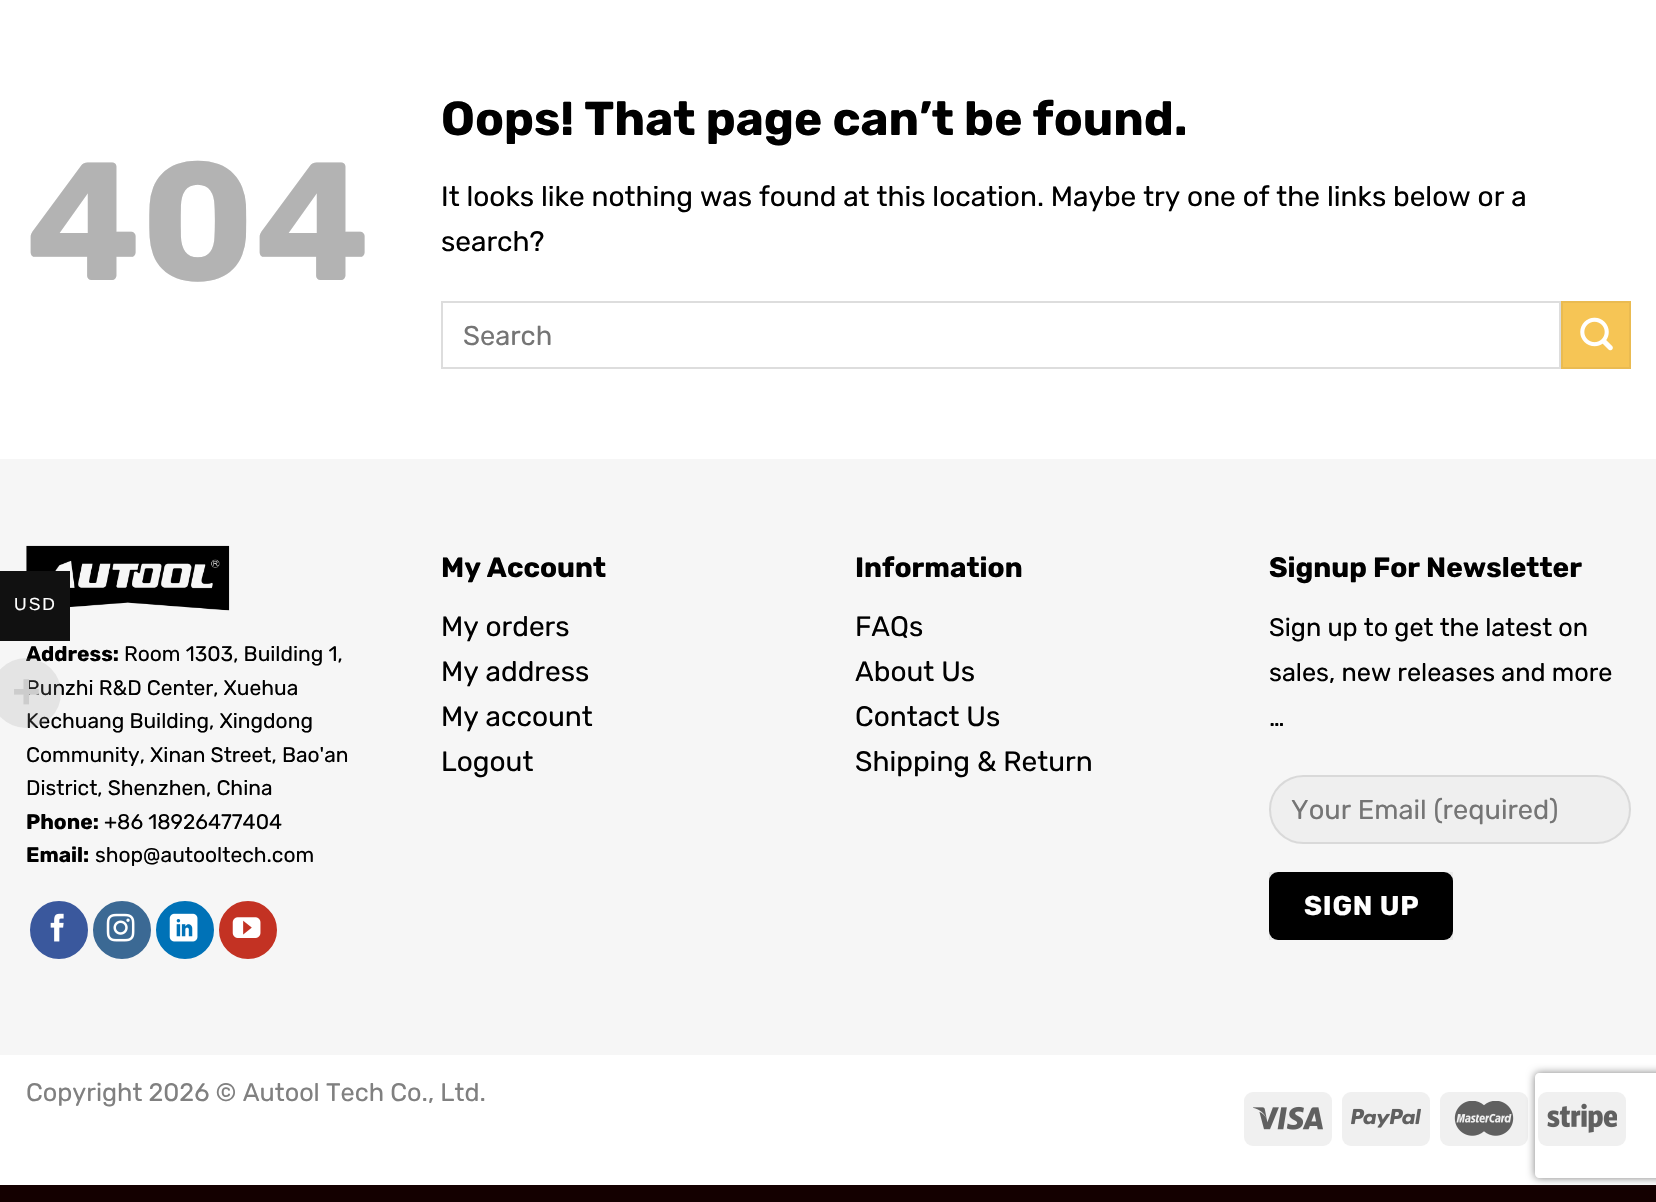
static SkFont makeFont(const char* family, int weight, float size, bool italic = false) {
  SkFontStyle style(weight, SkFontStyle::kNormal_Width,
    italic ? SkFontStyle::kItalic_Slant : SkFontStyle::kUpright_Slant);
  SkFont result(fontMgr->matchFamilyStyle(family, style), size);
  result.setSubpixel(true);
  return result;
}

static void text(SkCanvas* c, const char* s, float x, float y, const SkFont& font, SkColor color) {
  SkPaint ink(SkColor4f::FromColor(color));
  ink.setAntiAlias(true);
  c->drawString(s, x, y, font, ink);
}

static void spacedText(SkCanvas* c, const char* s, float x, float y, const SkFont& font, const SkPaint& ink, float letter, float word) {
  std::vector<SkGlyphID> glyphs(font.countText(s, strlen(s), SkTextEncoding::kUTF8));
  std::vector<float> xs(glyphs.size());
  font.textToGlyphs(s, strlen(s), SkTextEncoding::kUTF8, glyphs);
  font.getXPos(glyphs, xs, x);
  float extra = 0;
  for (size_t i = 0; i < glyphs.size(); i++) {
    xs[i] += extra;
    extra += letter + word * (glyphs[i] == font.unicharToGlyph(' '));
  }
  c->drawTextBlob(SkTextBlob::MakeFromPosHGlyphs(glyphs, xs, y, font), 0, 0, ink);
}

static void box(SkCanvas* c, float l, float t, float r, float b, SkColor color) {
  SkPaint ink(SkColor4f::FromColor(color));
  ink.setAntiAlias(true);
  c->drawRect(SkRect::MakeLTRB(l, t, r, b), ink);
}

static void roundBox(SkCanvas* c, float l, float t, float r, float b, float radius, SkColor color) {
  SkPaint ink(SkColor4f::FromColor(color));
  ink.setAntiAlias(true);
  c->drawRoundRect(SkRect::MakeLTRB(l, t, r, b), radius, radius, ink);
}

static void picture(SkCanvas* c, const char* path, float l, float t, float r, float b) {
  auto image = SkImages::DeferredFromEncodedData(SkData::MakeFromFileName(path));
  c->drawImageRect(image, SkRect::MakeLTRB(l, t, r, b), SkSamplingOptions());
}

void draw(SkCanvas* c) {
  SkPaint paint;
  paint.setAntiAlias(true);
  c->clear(0xff140000);
  box(c, 0, 0, 1656, 1185, 0xffffffff);
  SkFont face1 = makeFont("Rubik", 700, 168);
  text(c, "404", 26, 280, face1, 0xffb3b3b3);
  SkFont face2 = makeFont("Rubik", 700, 47.6f);
  text(c, "Oops! That page can’t be found.", 441, 135, face2, 0xff000000);
  SkFont face3 = makeFont("Rubik", 400, 28);
  text(c, "It looks like nothing was found at this location. Maybe try one of the links below or a", 441, 206, face3, 0xff000000);
  text(c, "search?", 441, 251, face3, 0xff000000);
  paint.setStyle(SkPaint::kStroke_Style);
  paint.setStrokeWidth(2);
  paint.setColor(0xffdddddd);
  c->drawRect(SkRect::MakeLTRB(442, 302, 1560, 368), paint);
  SkFont face4 = makeFont("Rubik", 400, 27.25f);
  text(c, "Search", 463, 345, face4, 0xff757575);
  paint.setStyle(SkPaint::kFill_Style);
  paint.setColor(0xfff6c555);
  c->drawRect(SkRect::MakeLTRB(1562, 302, 1630, 368), paint);
  paint.setStyle(SkPaint::kStroke_Style);
  paint.setColor(0xffeabb51);
  c->drawRect(SkRect::MakeLTRB(1562, 302, 1630, 368), paint);
  picture(c, "img_01.png", 1580, 317, 1613, 351);
  box(c, 0, 459, 1656, 1055, 0xfff6f6f6);
  picture(c, "img_02.png", 26, 545, 230, 611);
  SkFont face5 = makeFont("Rubik", 700, 21);
  text(c, "Address:", 26, 661, face5, 0xff000000);
  SkFont face6 = makeFont("Rubik", 400, 21);
  text(c, "Room 1303, Building 1,", 124, 661, face6, 0xff000000);
  text(c, "Runzhi R&D Center, Xuehua", 26, 695, face6, 0xff000000);
  text(c, "Kechuang Building, Xingdong", 26, 728, face6, 0xff000000);
  text(c, "Community, Xinan Street, Bao'an", 26, 762, face6, 0xff000000);
  text(c, "District, Shenzhen, China", 26, 795, face6, 0xff000000);
  text(c, "Phone:", 26, 829, face5, 0xff000000);
  text(c, "+86 18926477404", 104, 829, face6, 0xff000000);
  text(c, "Email:", 26, 862, face5, 0xff000000);
  text(c, "shop@autooltech.com", 95, 862, face6, 0xff000000);
  paint.setStyle(SkPaint::kFill_Style);
  paint.setColor(0xff3a589d);
  c->drawCircle(59, 930, 28, paint);
  paint.setStyle(SkPaint::kStroke_Style);
  c->drawCircle(59, 930, 28, paint);
  picture(c, "img_03.png", 50, 913, 64, 942);
  paint.setStyle(SkPaint::kFill_Style);
  paint.setColor(0xff3b6994);
  c->drawCircle(122, 930, 28, paint);
  paint.setStyle(SkPaint::kStroke_Style);
  c->drawCircle(122, 930, 28, paint);
  picture(c, "img_04.png", 106, 913, 135, 942);
  paint.setStyle(SkPaint::kFill_Style);
  paint.setColor(0xff0072b7);
  c->drawCircle(185, 930, 28, paint);
  paint.setStyle(SkPaint::kStroke_Style);
  c->drawCircle(185, 930, 28, paint);
  picture(c, "img_05.png", 169, 913, 198, 942);
  paint.setStyle(SkPaint::kFill_Style);
  paint.setColor(0xffc33223);
  c->drawCircle(248, 930, 28, paint);
  paint.setStyle(SkPaint::kStroke_Style);
  c->drawCircle(248, 930, 28, paint);
  picture(c, "img_06.png", 232, 917, 261, 938);
  SkFont face7 = makeFont("Rubik", 700, 28);
  text(c, "My Account", 441, 577, face7, 0xff000000);
  text(c, "My orders", 441, 636, face3, 0xff000000);
  text(c, "My address", 441, 681, face3, 0xff000000);
  text(c, "My account", 441, 726, face3, 0xff000000);
  text(c, "Logout", 441, 771, face3, 0xff000000);
  text(c, "Information", 855, 577, face7, 0xff000000);
  text(c, "FAQs", 855, 636, face3, 0xff000000);
  text(c, "About Us", 855, 681, face3, 0xff000000);
  text(c, "Contact Us", 855, 726, face3, 0xff000000);
  text(c, "Shipping & Return", 855, 771, face3, 0xff000000);
  text(c, "Signup For Newsletter", 1269, 577, face7, 0xff000000);
  SkFont face8 = makeFont("Rubik", 400, 25.25f);
  text(c, "Sign up to get the latest on", 1269, 636, face8, 0xff000000);
  text(c, "sales, new releases and more", 1269, 681, face8, 0xff000000);
  text(c, "…", 1269, 726, face8, 0xff000000);
  roundBox(c, 1269, 775, 1631, 844, 34.5f, 0xffefefef);
  paint.setColor(0x17000000);
  c->drawRoundRect(SkRect::MakeLTRB(1270, 776, 1630, 843), 33.5f, 33.5f, paint);
  text(c, "Your Email (required)", 1291, 819, face4, 0xff757575);
  roundBox(c, 1269, 872, 1453, 940, 9, 0xff000000);
  paint.setColor(0x0d000000);
  c->drawRect(SkRect::MakeLTRB(1270, 873, 1452, 939), paint);
  SkFont face9 = makeFont("Rubik", 700, 27.25f);
  paint.setStyle(SkPaint::kFill_Style);
  paint.setColor(0xffffffff);
  spacedText(c, "SIGN UP", 1304, 915, face9, paint, 0.75f, 0);
  text(c, "Copyright 2026 © Autool Tech Co., Ltd.", 26, 1101, face8, 0xff808080);
  roundBox(c, 1244, 1092, 1332, 1146, 9, 0xfff0f0f0);
  picture(c, "img_07.png", 1253, 1106, 1323, 1130);
  roundBox(c, 1342, 1092, 1430, 1146, 9, 0xfff0f0f0);
  picture(c, "img_08.png", 1351, 1108, 1421, 1128);
  roundBox(c, 1440, 1092, 1528, 1146, 9, 0xfff0f0f0);
  picture(c, "img_09.png", 1454, 1101, 1514, 1136);
  roundBox(c, 1538, 1092, 1626, 1146, 9, 0xfff0f0f0);
  picture(c, "img_10.png", 1547, 1103, 1617, 1133);
  box(c, 0, 571, 70, 641, 0xff111111);
  SkFont face10 = makeFont("Liberation Sans", 400, 17.5f);
  spacedText(c, "USD", 14, 610, face10, paint, 2, 0);
  paint.setColor(0x33999999);
  c->drawCircle(26, 693, 35, paint);
  SkFont face11 = makeFont("Liberation Sans", 700, 49);
  text(c, "+", 12, 708, face11, 0xffcccccc);
  c->save();
  c->clipPath(SkPathBuilder(SkPathFillType::kEvenOdd).moveTo(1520, 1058).lineTo(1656, 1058).lineTo(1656, 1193).lineTo(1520, 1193).close().moveTo(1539, 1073).lineTo(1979, 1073).cubicTo(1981, 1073, 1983, 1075, 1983, 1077).lineTo(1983, 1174).cubicTo(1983, 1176, 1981, 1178, 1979, 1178).lineTo(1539, 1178).cubicTo(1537, 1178, 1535, 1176, 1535, 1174).lineTo(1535, 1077).cubicTo(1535, 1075, 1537, 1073, 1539, 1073).close().detach(), true);
  paint.setColor(0xff808080);
  paint.setMaskFilter(SkMaskFilter::MakeBlur(kNormal_SkBlurStyle, 4.5f));
  c->drawRoundRect(SkRect::MakeLTRB(1535, 1073, 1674, 1178), 4, 4, paint);
  paint.setMaskFilter(nullptr);
  c->restore();
}
